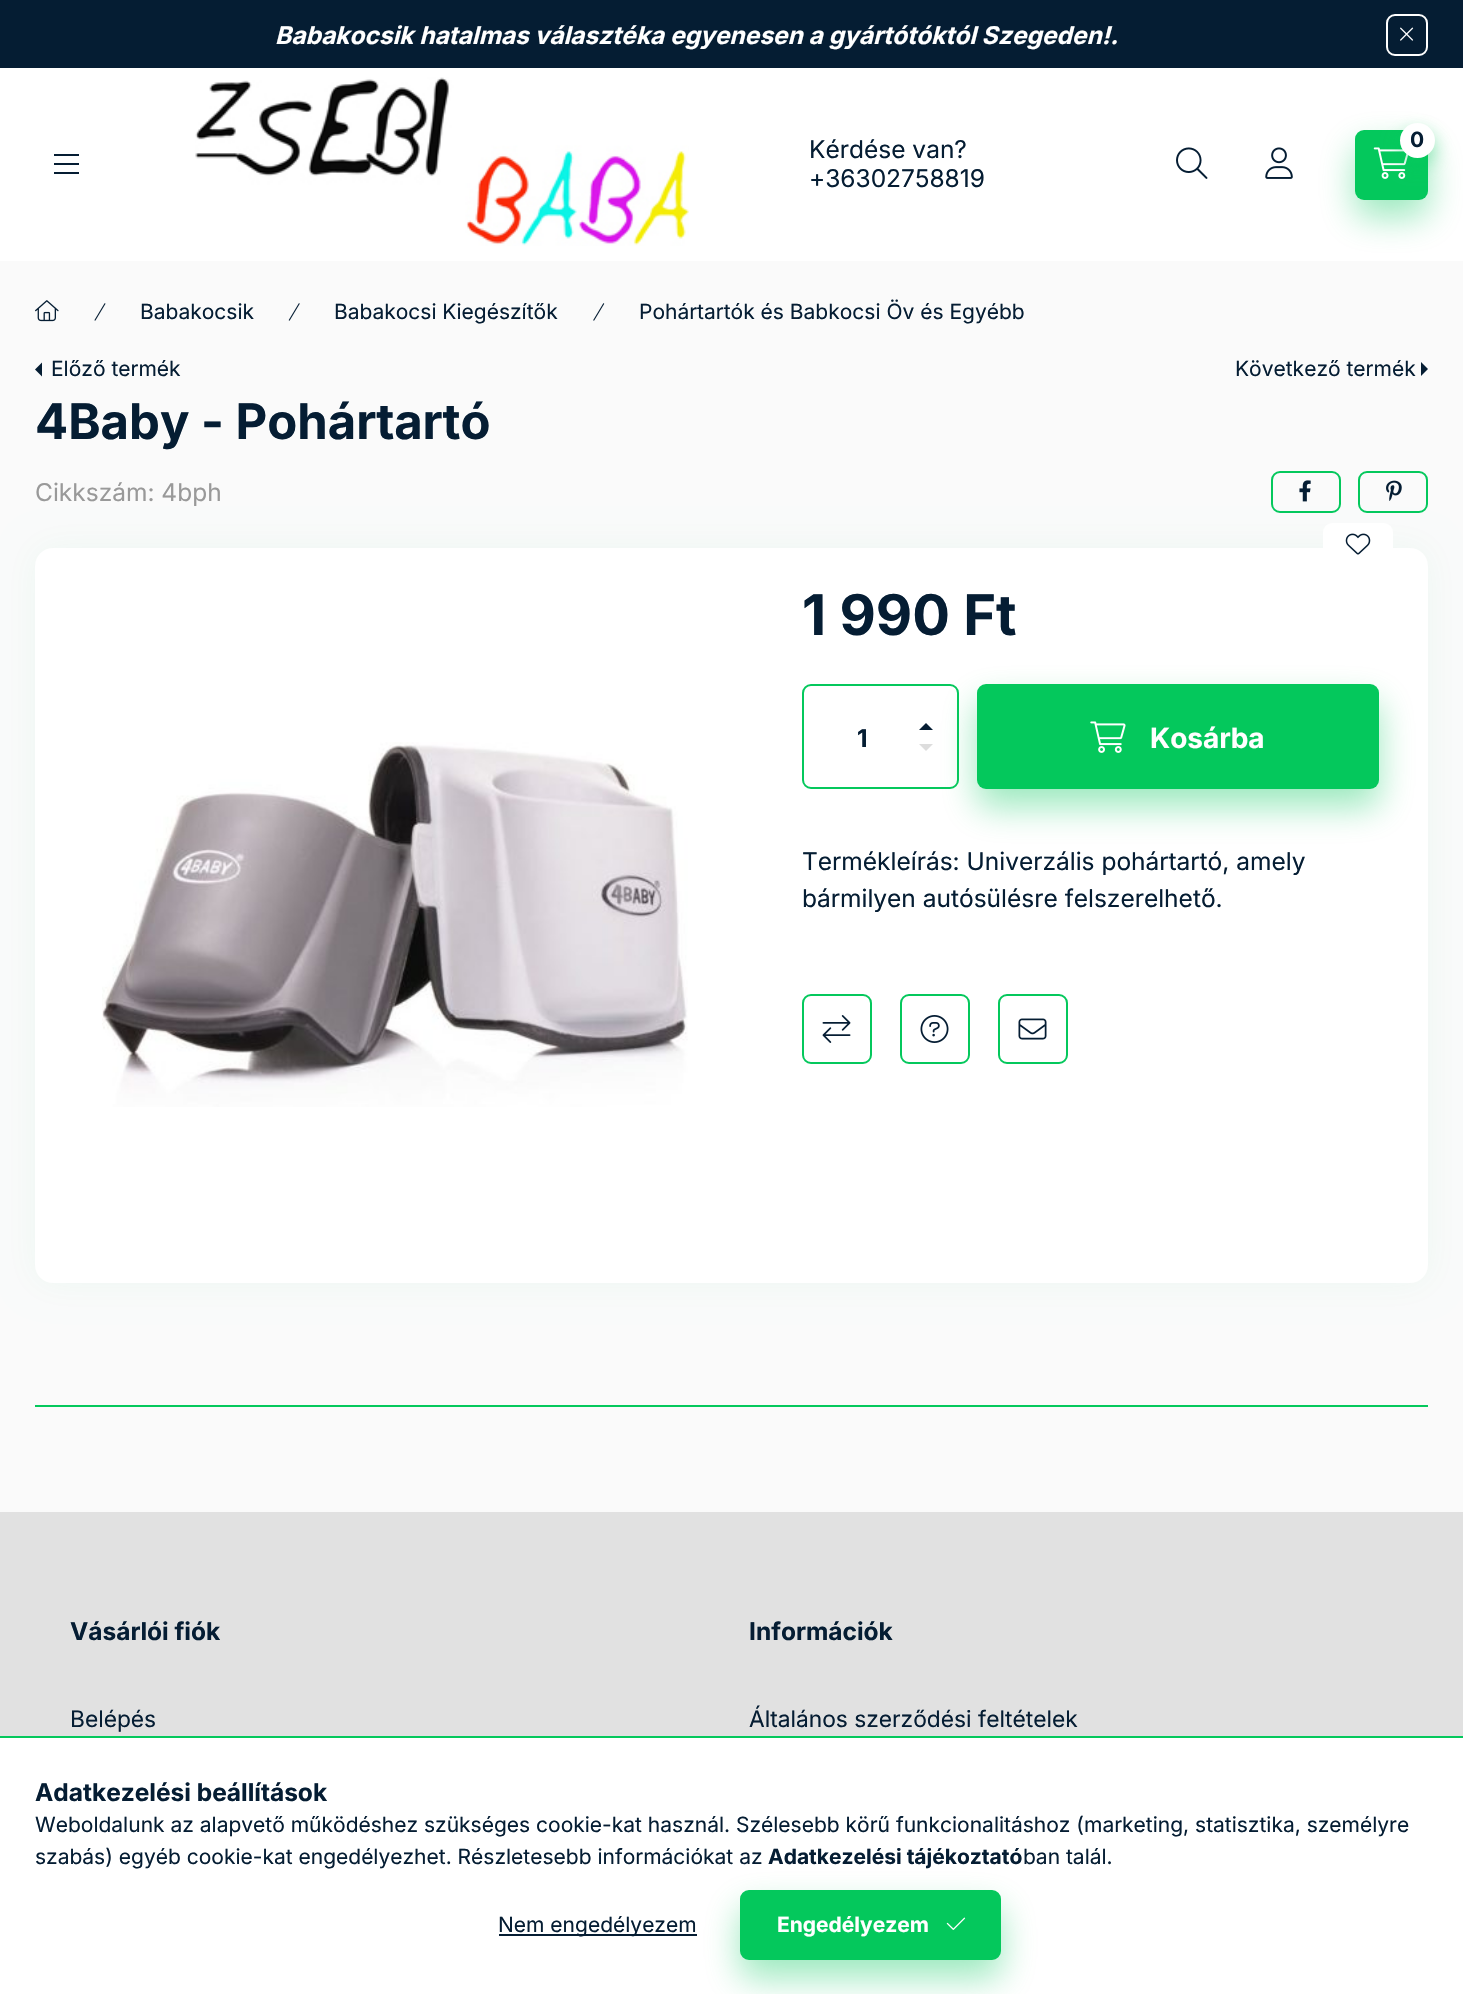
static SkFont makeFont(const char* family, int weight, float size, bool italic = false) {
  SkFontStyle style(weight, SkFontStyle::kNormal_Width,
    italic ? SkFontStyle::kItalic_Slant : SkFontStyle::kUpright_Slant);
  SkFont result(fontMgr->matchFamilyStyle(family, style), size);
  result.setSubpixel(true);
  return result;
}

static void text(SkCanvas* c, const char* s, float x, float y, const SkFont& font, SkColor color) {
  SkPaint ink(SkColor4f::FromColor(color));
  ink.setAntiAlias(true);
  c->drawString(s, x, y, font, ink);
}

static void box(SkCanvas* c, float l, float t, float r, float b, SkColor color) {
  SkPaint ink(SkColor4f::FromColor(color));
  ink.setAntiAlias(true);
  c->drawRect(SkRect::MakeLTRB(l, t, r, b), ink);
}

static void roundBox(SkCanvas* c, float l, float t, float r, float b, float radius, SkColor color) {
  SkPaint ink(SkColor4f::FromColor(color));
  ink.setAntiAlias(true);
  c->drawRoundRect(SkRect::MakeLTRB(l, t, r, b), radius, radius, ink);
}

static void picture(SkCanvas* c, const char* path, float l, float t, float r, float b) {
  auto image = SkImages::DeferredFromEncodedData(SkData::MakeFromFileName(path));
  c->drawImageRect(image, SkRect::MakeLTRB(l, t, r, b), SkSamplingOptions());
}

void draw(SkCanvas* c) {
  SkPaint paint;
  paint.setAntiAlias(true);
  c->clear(0xfffafafa);
  box(c, 0, 0, 1463, 68, 0xff051d33);
  SkFont face1 = makeFont("Inter", 700, 24.5f, true);
  text(c, "Babakocsik hatalmas választéka egyenesen a gyártótóktól Szegeden!.", 275, 44, face1, 0xffffffff);
  paint.setStyle(SkPaint::kStroke_Style);
  paint.setStrokeWidth(2);
  paint.setColor(0xffffffff);
  c->drawRoundRect(SkRect::MakeLTRB(1387, 15, 1427, 55), 8, 8, paint);
  picture(c, "img_01.png", 1400, 27, 1414, 41);
  box(c, 0, 68, 1463, 261, 0xffffffff);
  box(c, 54, 154, 79, 156, 0xff051d33);
  box(c, 54, 163, 79, 165, 0xff051d33);
  box(c, 54, 172, 79, 174, 0xff051d33);
  picture(c, "img_02.png", 195, 77, 689, 246);
  SkFont face2 = makeFont("Inter", 400, 24.5f);
  text(c, "Kérdése van?", 809, 158, face2, 0xff051d33);
  text(c, "+36302758819", 809, 187, face2, 0xff051d33);
  paint.setStyle(SkPaint::kFill_Style);
  paint.setColor(0x6604c85c);
  paint.setMaskFilter(SkMaskFilter::MakeBlur(kNormal_SkBlurStyle, 17.5f));
  c->drawRoundRect(SkRect::MakeLTRB(1355, 147, 1428, 217), 9, 9, paint);
  paint.setMaskFilter(nullptr);
  roundBox(c, 1355, 130, 1428, 200, 9, 0xff04c85c);
  picture(c, "img_03.png", 1373, 147, 1409, 179);
  paint.setMaskFilter(SkMaskFilter::MakeBlur(kNormal_SkBlurStyle, 9));
  c->drawRoundRect(SkRect::MakeLTRB(1400, 131, 1435, 166), 17.5f, 17.5f, paint);
  paint.setMaskFilter(nullptr);
  paint.setColor(0xffffffff);
  c->drawCircle(1417.5f, 140.5f, 17.5f, paint);
  SkFont face3 = makeFont("Inter", 700, 21);
  text(c, "0", 1410, 147, face3, 0xff051d33);
  picture(c, "img_04.png", 1176, 147, 1208, 179);
  picture(c, "img_05.png", 1265, 147, 1293, 179);
  picture(c, "img_06.png", 35, 300, 59, 322);
  picture(c, "img_07.png", 94, 303, 106, 321);
  SkFont face4 = makeFont("Inter", 400, 21);
  text(c, "Babakocsik", 140, 319, face4, 0xff051d33);
  picture(c, "img_08.png", 288, 303, 300, 321);
  text(c, "Babakocsi Kiegészítők", 334, 319, face4, 0xff051d33);
  picture(c, "img_09.png", 593, 303, 605, 321);
  text(c, "Pohártartók és Babkocsi Öv és Egyébb", 639, 319, face4, 0xff051d33);
  paint.setColor(0xff051d33);
  c->drawPath(SkPathBuilder().moveTo(42, 376.5f).lineTo(42, 362.5f).lineTo(35, 369.5f).close().detach(), paint);
  text(c, "Előző termék", 51, 376, face4, 0xff051d33);
  text(c, "Következő termék", 1235, 376, face4, 0xff051d33);
  c->drawPath(SkPathBuilder().moveTo(1421, 376).lineTo(1421, 362).lineTo(1428, 369).close().detach(), paint);
  SkFont face5 = makeFont("Inter", 700, 49);
  text(c, "4Baby - Pohártartó", 35, 439, face5, 0xff051d33);
  text(c, "Cikkszám: 4bph", 35, 501, face2, 0xff999999);
  paint.setStyle(SkPaint::kStroke_Style);
  paint.setColor(0xff04c85c);
  c->drawRoundRect(SkRect::MakeLTRB(1272, 472, 1340, 512), 8, 8, paint);
  picture(c, "img_10.png", 1299, 480, 1311, 502);
  c->drawRoundRect(SkRect::MakeLTRB(1359, 472, 1427, 512), 8, 8, paint);
  picture(c, "img_11.png", 1386, 480, 1402, 501);
  paint.setStyle(SkPaint::kFill_Style);
  paint.setColor(0x0d04c85c);
  paint.setMaskFilter(SkMaskFilter::MakeBlur(kNormal_SkBlurStyle, 17.5f));
  c->drawRoundRect(SkRect::MakeLTRB(35, 548, 1428, 1283), 18, 18, paint);
  paint.setMaskFilter(nullptr);
  roundBox(c, 35, 548, 1428, 1283, 18, 0xffffffff);
  roundBox(c, 1323, 523, 1393, 565, 9, 0xffffffff);
  picture(c, "img_12.png", 1345, 533, 1371, 555);
  picture(c, "img_13.png", 102, 742, 688, 1107);
  SkFont face6 = makeFont("Inter", 700, 56);
  text(c, "1 990 Ft", 802, 635, face6, 0xff051d33);
  paint.setStyle(SkPaint::kStroke_Style);
  paint.setColor(0xff04c85c);
  c->drawRoundRect(SkRect::MakeLTRB(803, 685, 958, 788), 8, 8, paint);
  SkFont face7 = makeFont("Inter", 700, 24.5f);
  text(c, "1", 857, 747, face7, 0xff051d33);
  paint.setStyle(SkPaint::kFill_Style);
  paint.setColor(0xff051d33);
  c->drawPath(SkPathBuilder().moveTo(933, 730).lineTo(919, 730).lineTo(926, 723).close().detach(), paint);
  paint.setColor(0xffdddddd);
  c->drawPath(SkPathBuilder().moveTo(919, 744).lineTo(933, 744).lineTo(926, 751).close().detach(), paint);
  paint.setColor(0x6604c85c);
  paint.setMaskFilter(SkMaskFilter::MakeBlur(kNormal_SkBlurStyle, 17.5f));
  c->drawRoundRect(SkRect::MakeLTRB(977, 702, 1379, 807), 9, 9, paint);
  paint.setMaskFilter(nullptr);
  roundBox(c, 977, 684, 1379, 789, 9, 0xff04c85c);
  picture(c, "img_14.png", 1090, 721, 1126, 753);
  SkFont face8 = makeFont("Inter", 700, 28);
  text(c, "Kosárba", 1150, 748, face8, 0xffffffff);
  text(c, "Termékleírás: Univerzális pohártartó, amely", 802, 870, face2, 0xff051d33);
  text(c, "bármilyen autósülésre felszerelhető.", 802, 907, face2, 0xff051d33);
  paint.setStyle(SkPaint::kStroke_Style);
  paint.setColor(0xff04c85c);
  c->drawRoundRect(SkRect::MakeLTRB(803, 995, 871, 1063), 8, 8, paint);
  picture(c, "img_15.png", 822, 1015, 851, 1043);
  c->drawRoundRect(SkRect::MakeLTRB(901, 995, 969, 1063), 8, 8, paint);
  picture(c, "img_16.png", 920, 1015, 949, 1043);
  c->drawRoundRect(SkRect::MakeLTRB(999, 995, 1067, 1063), 8, 8, paint);
  picture(c, "img_17.png", 1018, 1018, 1047, 1040);
  box(c, 35, 1405, 1428, 1407, 0xff04c85c);
  box(c, 0, 1512, 1463, 1736, 0xffe1e1e1);
  text(c, "Vásárlói fiók", 70, 1640, face7, 0xff051d33);
  SkFont face9 = makeFont("Inter", 400, 22.75f);
  text(c, "Belépés", 70, 1727, face9, 0xff051d33);
  text(c, "Információk", 749, 1640, face7, 0xff051d33);
  text(c, "Általános szerződési feltételek", 749, 1727, face9, 0xff051d33);
  box(c, 0, 1738, 1463, 1994, 0xffffffff);
  box(c, 0, 1736, 1463, 1738, 0xff04c85c);
  text(c, "Adatkezelési beállítások", 35, 1801, face7, 0xff051d33);
  text(c, "Weboldalunk az alapvető működéshez szükséges cookie-kat használ. Szélesebb körű funkcionalitáshoz (marketing, statisztika, személyre", 35, 1832, face4, 0xff051d33);
  text(c, "szabás) egyéb cookie-kat engedélyezhet. Részletesebb információkat az", 35, 1864, face4, 0xff051d33);
  text(c, "Adatkezelési tájékoztató", 768, 1864, face3, 0xff051d33);
  text(c, "ban talál.", 1023, 1864, face4, 0xff051d33);
  box(c, 499, 1934, 697, 1936, 0xff051d33);
  text(c, "Nem engedélyezem", 498, 1932, face4, 0xff051d33);
  paint.setStyle(SkPaint::kFill_Style);
  paint.setColor(0x6604c85c);
  paint.setMaskFilter(SkMaskFilter::MakeBlur(kNormal_SkBlurStyle, 17.5f));
  c->drawRoundRect(SkRect::MakeLTRB(740, 1908, 1001, 1978), 9, 9, paint);
  paint.setMaskFilter(nullptr);
  paint.setColor(0xff04c85c);
  c->drawRoundRect(SkRect::MakeLTRB(741, 1891, 1000, 1959), 8, 8, paint);
  paint.setStyle(SkPaint::kStroke_Style);
  c->drawRoundRect(SkRect::MakeLTRB(741, 1891, 1000, 1959), 8, 8, paint);
  text(c, "Engedélyezem", 777, 1932, face3, 0xffffffff);
  picture(c, "img_18.png", 946, 1917, 966, 1930);
}
